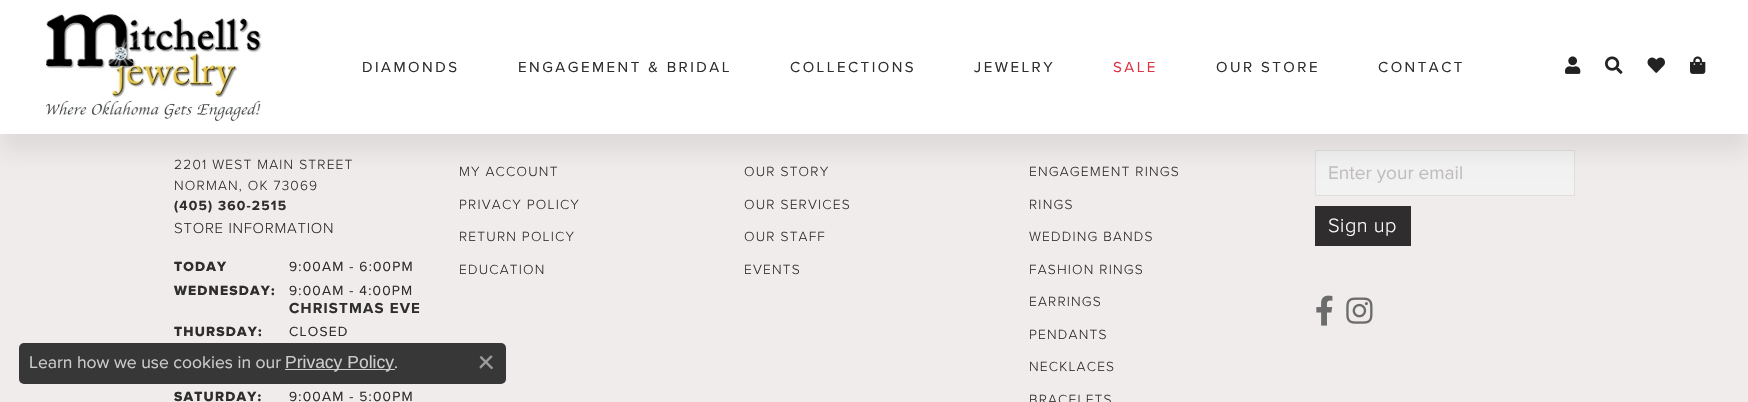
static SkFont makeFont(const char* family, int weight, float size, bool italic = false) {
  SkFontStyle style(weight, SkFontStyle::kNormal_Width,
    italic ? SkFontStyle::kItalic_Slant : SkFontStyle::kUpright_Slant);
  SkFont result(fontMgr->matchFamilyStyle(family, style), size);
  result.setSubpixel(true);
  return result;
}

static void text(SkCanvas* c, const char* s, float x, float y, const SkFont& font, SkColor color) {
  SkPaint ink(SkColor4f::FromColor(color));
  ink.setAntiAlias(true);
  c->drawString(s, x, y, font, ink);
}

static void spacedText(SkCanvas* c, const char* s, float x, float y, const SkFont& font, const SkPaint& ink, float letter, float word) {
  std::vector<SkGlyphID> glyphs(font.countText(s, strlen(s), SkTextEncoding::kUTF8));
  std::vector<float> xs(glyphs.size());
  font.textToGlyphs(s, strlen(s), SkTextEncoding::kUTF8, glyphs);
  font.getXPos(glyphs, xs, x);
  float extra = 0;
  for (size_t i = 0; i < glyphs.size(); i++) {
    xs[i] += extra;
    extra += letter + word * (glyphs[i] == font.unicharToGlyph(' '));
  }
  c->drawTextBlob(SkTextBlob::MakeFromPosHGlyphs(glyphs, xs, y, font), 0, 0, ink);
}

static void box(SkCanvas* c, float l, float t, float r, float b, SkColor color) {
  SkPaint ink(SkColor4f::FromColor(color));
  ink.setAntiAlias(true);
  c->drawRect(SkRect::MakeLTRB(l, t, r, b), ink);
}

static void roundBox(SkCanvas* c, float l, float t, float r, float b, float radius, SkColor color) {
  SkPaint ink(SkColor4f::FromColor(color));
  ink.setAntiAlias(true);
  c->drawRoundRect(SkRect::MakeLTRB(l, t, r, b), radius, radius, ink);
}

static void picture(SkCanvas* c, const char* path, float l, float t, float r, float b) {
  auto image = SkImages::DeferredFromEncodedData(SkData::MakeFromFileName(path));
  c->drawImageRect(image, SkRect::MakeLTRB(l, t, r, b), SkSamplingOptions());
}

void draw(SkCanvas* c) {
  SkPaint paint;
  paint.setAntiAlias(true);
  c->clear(0xfff0ecec);
  paint.setColor(0xfff3f2f2);
  c->drawRect(SkRect::MakeLTRB(1315.5f, 150.5f, 1574.5f, 195.5f), paint);
  paint.setStyle(SkPaint::kStroke_Style);
  paint.setStrokeWidth(1);
  paint.setColor(0xffdfdede);
  c->drawRect(SkRect::MakeLTRB(1315.5f, 150.5f, 1574.5f, 195.5f), paint);
  paint.setStyle(SkPaint::kFill_Style);
  paint.setColor(0x12000000);
  paint.setMaskFilter(SkMaskFilter::MakeBlur(kNormal_SkBlurStyle, 9.5f));
  c->drawRect(SkRect::MakeLTRB(0, 19, 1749, 153), paint);
  paint.setMaskFilter(nullptr);
  box(c, 0, 0, 1748, 134, 0xffffffff);
  picture(c, "img_01.png", 46, 14, 262, 121);
  SkFont face1 = makeFont("Proxima Nova", 400, 15);
  paint.setColor(0xff2f2d2d);
  spacedText(c, "DIAMONDS", 362, 72, face1, paint, 2.5f, 0);
  spacedText(c, "ENGAGEMENT & BRIDAL", 518, 72, face1, paint, 2.5f, 0);
  spacedText(c, "COLLECTIONS", 790, 72, face1, paint, 2.5f, 0);
  spacedText(c, "JEWELRY", 974, 72, face1, paint, 2.5f, 0);
  paint.setColor(0xffdc3545);
  spacedText(c, "SALE", 1113, 72, face1, paint, 2.5f, 0);
  paint.setColor(0xff2f2d2d);
  spacedText(c, "OUR STORE", 1216, 72, face1, paint, 2.5f, 0);
  spacedText(c, "CONTACT", 1378, 72, face1, paint, 2.5f, 0);
  picture(c, "img_02.png", 1565, 56, 1581, 74);
  picture(c, "img_03.png", 1605, 56, 1623, 74);
  picture(c, "img_04.png", 1647, 57, 1665, 73);
  picture(c, "img_05.png", 1690, 56, 1706, 74);
  SkFont face2 = makeFont("Proxima Nova", 300, 13.75f);
  spacedText(c, "2201 WEST MAIN STREET", 174, 169, face2, paint, 1.2f, 0);
  spacedText(c, "NORMAN, OK 73069", 174, 190, face2, paint, 1.2f, 0);
  SkFont face3 = makeFont("Proxima Nova", 700, 13.75f);
  spacedText(c, "(405) 360-2515", 174, 210, face3, paint, 1.2f, 0);
  SkFont face4 = makeFont("Proxima Nova", 300, 15);
  spacedText(c, "STORE INFORMATION", 174, 233, face4, paint, 0.75f, 0);
  SkFont face5 = makeFont("Proxima Nova", 800, 13.75f);
  spacedText(c, "TODAY", 174, 271, face5, paint, 1.2f, 0);
  SkFont face6 = makeFont("Proxima Nova", 400, 13.75f);
  spacedText(c, "9:00AM - 6:00PM", 289, 271, face6, paint, 1.2f, 0);
  spacedText(c, "WEDNESDAY:", 174, 295, face5, paint, 1.2f, 0);
  spacedText(c, "9:00AM - 4:00PM", 289, 295, face6, paint, 1.2f, 0);
  SkFont face7 = makeFont("Proxima Nova", 700, 15);
  spacedText(c, "CHRISTMAS EVE", 289, 313, face7, paint, 1.2f, 0);
  spacedText(c, "THURSDAY:", 174, 336, face5, paint, 1.2f, 0);
  spacedText(c, "CLOSED", 289, 336, face6, paint, 1.2f, 0);
  spacedText(c, "SATURDAY:", 174, 401, face5, paint, 1.2f, 0);
  spacedText(c, "9:00AM - 5:00PM", 289, 401, face6, paint, 1.2f, 0);
  spacedText(c, "MY ACCOUNT", 459, 176, face2, paint, 1.2f, 0);
  spacedText(c, "PRIVACY POLICY", 459, 209, face2, paint, 1.2f, 0);
  spacedText(c, "RETURN POLICY", 459, 241, face2, paint, 1.2f, 0);
  spacedText(c, "EDUCATION", 459, 274, face2, paint, 1.2f, 0);
  spacedText(c, "OUR STORY", 744, 176, face2, paint, 1.2f, 0);
  spacedText(c, "OUR SERVICES", 744, 209, face2, paint, 1.2f, 0);
  spacedText(c, "OUR STAFF", 744, 241, face2, paint, 1.2f, 0);
  spacedText(c, "EVENTS", 744, 274, face2, paint, 1.2f, 0);
  spacedText(c, "ENGAGEMENT RINGS", 1029, 176, face2, paint, 1.2f, 0);
  spacedText(c, "RINGS", 1029, 209, face2, paint, 1.2f, 0);
  spacedText(c, "WEDDING BANDS", 1029, 241, face2, paint, 1.2f, 0);
  spacedText(c, "FASHION RINGS", 1029, 274, face2, paint, 1.2f, 0);
  spacedText(c, "EARRINGS", 1029, 306, face2, paint, 1.2f, 0);
  spacedText(c, "PENDANTS", 1029, 339, face2, paint, 1.2f, 0);
  spacedText(c, "NECKLACES", 1029, 371, face2, paint, 1.2f, 0);
  spacedText(c, "BRACELETS", 1029, 404, face2, paint, 1.2f, 0);
  SkFont face8 = makeFont("Proxima Nova", 400, 19);
  text(c, "Enter your email", 1328, 179, face8, 0xffc0bdbd);
  box(c, 1315, 206, 1411, 246, 0xff2f2d2d);
  SkFont face9 = makeFont("Proxima Nova", 300, 20);
  paint.setColor(0xffffffff);
  spacedText(c, "Sign up", 1328, 232, face9, paint, 0.5f, 0);
  picture(c, "img_06.png", 1316, 295, 1333, 326);
  picture(c, "img_07.png", 1346, 297, 1373, 324);
  roundBox(c, 19, 343, 506, 384, 5, 0xe6222222);
  SkFont face10 = makeFont("Proxima Nova", 400, 17.5f);
  text(c, "Learn how we use cookies in our", 29, 368, face10, 0xffcccccc);
  box(c, 285, 369, 395, 370, 0xffcccccc);
  SkFont face11 = makeFont("Liberation Sans", 400, 17.5f);
  text(c, "Privacy Policy", 285, 368, face11, 0xffcccccc);
  text(c, ".", 394, 368, face10, 0xffcccccc);
  picture(c, "img_08.png", 479, 355, 493, 370);
}
